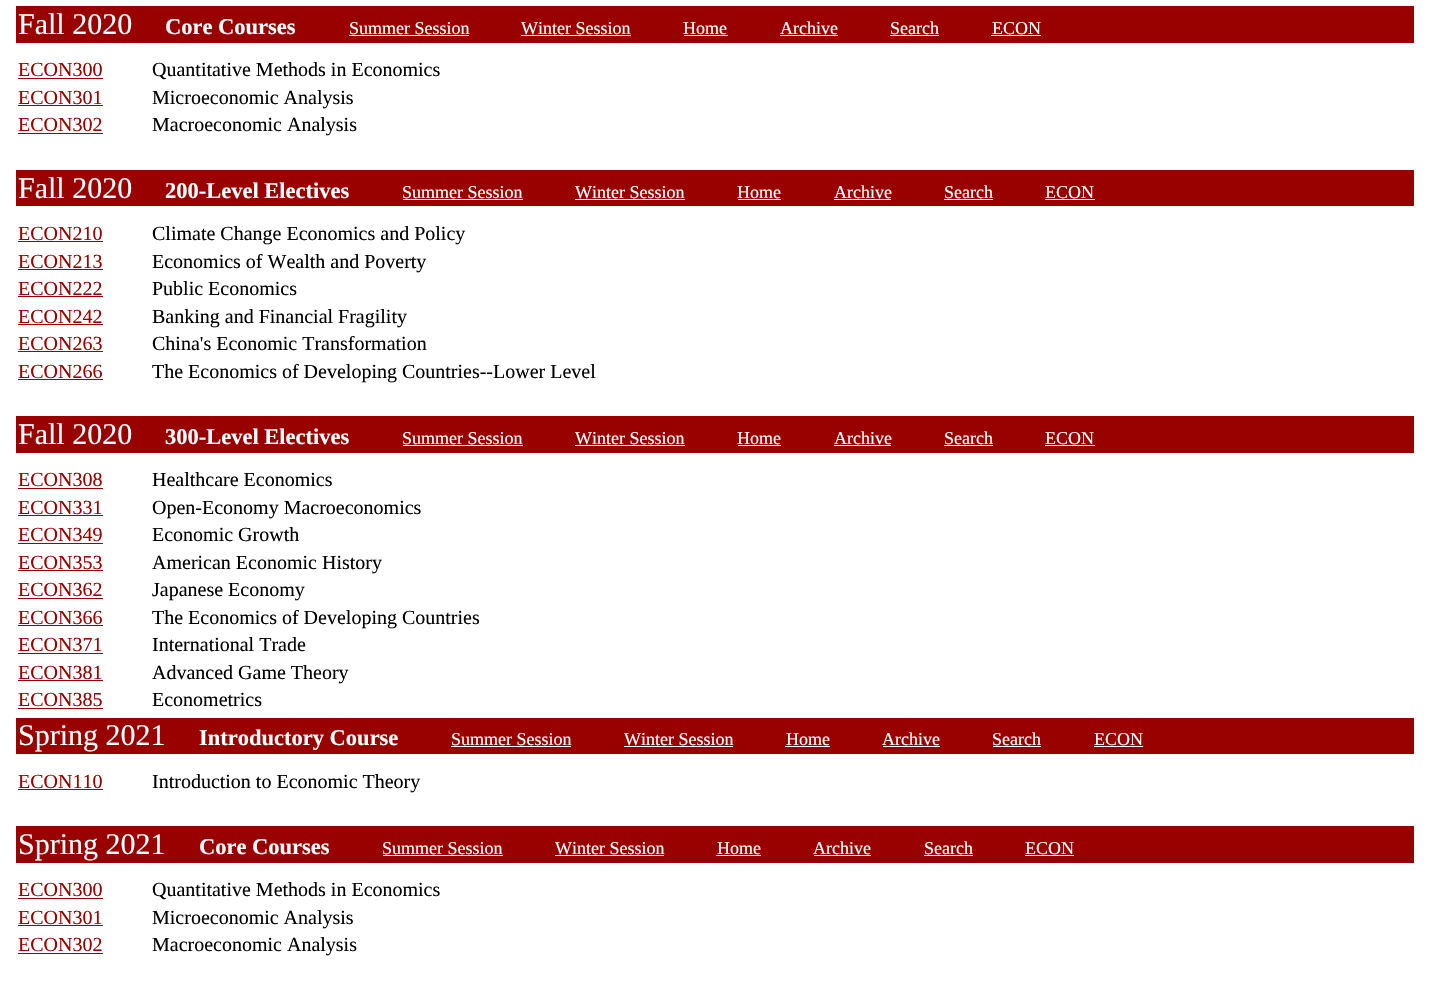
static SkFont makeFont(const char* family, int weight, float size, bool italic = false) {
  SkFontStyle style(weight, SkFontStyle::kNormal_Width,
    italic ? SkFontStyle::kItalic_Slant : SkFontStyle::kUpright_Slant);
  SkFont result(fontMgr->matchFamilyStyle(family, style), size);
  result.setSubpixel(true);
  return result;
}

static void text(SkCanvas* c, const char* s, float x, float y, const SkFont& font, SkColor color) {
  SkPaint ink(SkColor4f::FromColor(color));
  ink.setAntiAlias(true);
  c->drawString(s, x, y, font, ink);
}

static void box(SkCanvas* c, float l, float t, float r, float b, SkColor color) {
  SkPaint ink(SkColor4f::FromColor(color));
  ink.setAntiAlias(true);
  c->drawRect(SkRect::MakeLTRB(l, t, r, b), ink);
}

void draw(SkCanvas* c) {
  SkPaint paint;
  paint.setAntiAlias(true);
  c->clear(0xffffffff);
  box(c, 16, 6, 1414, 43, 0xff990000);
  SkFont face1 = makeFont("Liberation Serif", 400, 30);
  text(c, "Fall 2020", 18, 34, face1, 0xffffffff);
  SkFont face2 = makeFont("Liberation Serif", 700, 22.5f);
  text(c, "Core Courses", 165, 34, face2, 0xffffffff);
  SkFont face3 = makeFont("Liberation Serif", 400, 18);
  text(c, "Summer Session", 349, 34, face3, 0xffffffff);
  box(c, 349, 35, 469, 36, 0xffffffff);
  text(c, "Winter Session", 521, 34, face3, 0xffffffff);
  box(c, 521, 35, 631, 36, 0xffffffff);
  text(c, "Home", 683, 34, face3, 0xffffffff);
  box(c, 684, 35, 728, 36, 0xffffffff);
  text(c, "Archive", 780, 34, face3, 0xffffffff);
  box(c, 780, 35, 838, 36, 0xffffffff);
  text(c, "Search", 890, 34, face3, 0xffffffff);
  box(c, 890, 35, 939, 36, 0xffffffff);
  text(c, "ECON", 992, 34, face3, 0xffffffff);
  box(c, 991, 35, 1041, 36, 0xffffffff);
  SkFont face4 = makeFont("Liberation Serif", 400, 20);
  text(c, "ECON300", 18, 76, face4, 0xff990000);
  box(c, 18, 78, 103, 79, 0xff990000);
  text(c, "Quantitative Methods in Economics", 152, 76, face4, 0xff000000);
  text(c, "ECON301", 18, 104, face4, 0xff990000);
  box(c, 18, 105, 103, 106, 0xff990000);
  text(c, "Microeconomic Analysis", 152, 104, face4, 0xff000000);
  text(c, "ECON302", 18, 131, face4, 0xff990000);
  box(c, 18, 133, 103, 134, 0xff990000);
  text(c, "Macroeconomic Analysis", 152, 131, face4, 0xff000000);
  box(c, 16, 170, 1414, 206, 0xff990000);
  text(c, "Fall 2020", 18, 198, face1, 0xffffffff);
  text(c, "200-Level Electives", 165, 198, face2, 0xffffffff);
  text(c, "Summer Session", 402, 198, face3, 0xffffffff);
  box(c, 403, 199, 523, 200, 0xffffffff);
  text(c, "Winter Session", 575, 198, face3, 0xffffffff);
  box(c, 575, 199, 685, 200, 0xffffffff);
  text(c, "Home", 737, 198, face3, 0xffffffff);
  box(c, 738, 199, 781, 200, 0xffffffff);
  text(c, "Archive", 834, 198, face3, 0xffffffff);
  box(c, 834, 199, 891, 200, 0xffffffff);
  text(c, "Search", 944, 198, face3, 0xffffffff);
  box(c, 944, 199, 993, 200, 0xffffffff);
  text(c, "ECON", 1045, 198, face3, 0xffffffff);
  box(c, 1045, 199, 1095, 200, 0xffffffff);
  text(c, "ECON210", 18, 240, face4, 0xff990000);
  box(c, 18, 241, 103, 242, 0xff990000);
  text(c, "Climate Change Economics and Policy", 152, 240, face4, 0xff000000);
  text(c, "ECON213", 18, 268, face4, 0xff990000);
  box(c, 18, 269, 103, 270, 0xff990000);
  text(c, "Economics of Wealth and Poverty", 152, 268, face4, 0xff000000);
  text(c, "ECON222", 18, 295, face4, 0xff990000);
  box(c, 18, 296, 103, 297, 0xff990000);
  text(c, "Public Economics", 152, 295, face4, 0xff000000);
  text(c, "ECON242", 18, 323, face4, 0xff990000);
  box(c, 18, 324, 103, 325, 0xff990000);
  text(c, "Banking and Financial Fragility", 152, 323, face4, 0xff000000);
  text(c, "ECON263", 18, 350, face4, 0xff990000);
  box(c, 18, 351, 103, 352, 0xff990000);
  text(c, "China's Economic Transformation", 152, 350, face4, 0xff000000);
  text(c, "ECON266", 18, 378, face4, 0xff990000);
  box(c, 18, 379, 103, 380, 0xff990000);
  text(c, "The Economics of Developing Countries--Lower Level", 152, 378, face4, 0xff000000);
  box(c, 16, 416, 1414, 453, 0xff990000);
  text(c, "Fall 2020", 18, 444, face1, 0xffffffff);
  text(c, "300-Level Electives", 165, 444, face2, 0xffffffff);
  text(c, "Summer Session", 402, 444, face3, 0xffffffff);
  box(c, 403, 445, 523, 446, 0xffffffff);
  text(c, "Winter Session", 575, 444, face3, 0xffffffff);
  box(c, 575, 445, 685, 446, 0xffffffff);
  text(c, "Home", 737, 444, face3, 0xffffffff);
  box(c, 738, 445, 781, 446, 0xffffffff);
  text(c, "Archive", 834, 444, face3, 0xffffffff);
  box(c, 834, 445, 891, 446, 0xffffffff);
  text(c, "Search", 944, 444, face3, 0xffffffff);
  box(c, 944, 445, 993, 446, 0xffffffff);
  text(c, "ECON", 1045, 444, face3, 0xffffffff);
  box(c, 1045, 445, 1095, 446, 0xffffffff);
  text(c, "ECON308", 18, 486, face4, 0xff990000);
  box(c, 18, 488, 103, 489, 0xff990000);
  text(c, "Healthcare Economics", 152, 486, face4, 0xff000000);
  text(c, "ECON331", 18, 514, face4, 0xff990000);
  box(c, 18, 515, 103, 516, 0xff990000);
  text(c, "Open-Economy Macroeconomics", 152, 514, face4, 0xff000000);
  text(c, "ECON349", 18, 541, face4, 0xff990000);
  box(c, 18, 543, 103, 544, 0xff990000);
  text(c, "Economic Growth", 152, 541, face4, 0xff000000);
  text(c, "ECON353", 18, 569, face4, 0xff990000);
  box(c, 18, 570, 103, 571, 0xff990000);
  text(c, "American Economic History", 152, 569, face4, 0xff000000);
  text(c, "ECON362", 18, 596, face4, 0xff990000);
  box(c, 18, 598, 103, 599, 0xff990000);
  text(c, "Japanese Economy", 152, 596, face4, 0xff000000);
  text(c, "ECON366", 18, 624, face4, 0xff990000);
  box(c, 18, 625, 103, 626, 0xff990000);
  text(c, "The Economics of Developing Countries", 152, 624, face4, 0xff000000);
  text(c, "ECON371", 18, 651, face4, 0xff990000);
  box(c, 18, 653, 103, 654, 0xff990000);
  text(c, "International Trade", 152, 651, face4, 0xff000000);
  text(c, "ECON381", 18, 679, face4, 0xff990000);
  box(c, 18, 680, 103, 681, 0xff990000);
  text(c, "Advanced Game Theory", 152, 679, face4, 0xff000000);
  text(c, "ECON385", 18, 706, face4, 0xff990000);
  box(c, 18, 708, 103, 709, 0xff990000);
  text(c, "Econometrics", 152, 706, face4, 0xff000000);
  box(c, 16, 718, 1414, 754, 0xff990000);
  text(c, "Spring 2021", 18, 745, face1, 0xffffffff);
  text(c, "Introductory Course", 199, 745, face2, 0xffffffff);
  text(c, "Summer Session", 451, 745, face3, 0xffffffff);
  box(c, 451, 746, 571, 747, 0xffffffff);
  text(c, "Winter Session", 624, 745, face3, 0xffffffff);
  box(c, 624, 746, 733, 747, 0xffffffff);
  text(c, "Home", 786, 745, face3, 0xffffffff);
  box(c, 785, 746, 830, 747, 0xffffffff);
  text(c, "Archive", 882, 745, face3, 0xffffffff);
  box(c, 883, 746, 940, 747, 0xffffffff);
  text(c, "Search", 992, 745, face3, 0xffffffff);
  box(c, 993, 746, 1041, 747, 0xffffffff);
  text(c, "ECON", 1094, 745, face3, 0xffffffff);
  box(c, 1094, 746, 1143, 747, 0xffffffff);
  text(c, "ECON110", 18, 788, face4, 0xff990000);
  box(c, 18, 789, 103, 790, 0xff990000);
  text(c, "Introduction to Economic Theory", 152, 788, face4, 0xff000000);
  box(c, 16, 826, 1414, 863, 0xff990000);
  text(c, "Spring 2021", 18, 854, face1, 0xffffffff);
  text(c, "Core Courses", 199, 854, face2, 0xffffffff);
  text(c, "Summer Session", 382, 854, face3, 0xffffffff);
  box(c, 383, 855, 503, 856, 0xffffffff);
  text(c, "Winter Session", 555, 854, face3, 0xffffffff);
  box(c, 555, 855, 664, 856, 0xffffffff);
  text(c, "Home", 717, 854, face3, 0xffffffff);
  box(c, 716, 855, 761, 856, 0xffffffff);
  text(c, "Archive", 813, 854, face3, 0xffffffff);
  box(c, 814, 855, 871, 856, 0xffffffff);
  text(c, "Search", 924, 854, face3, 0xffffffff);
  box(c, 924, 855, 973, 856, 0xffffffff);
  text(c, "ECON", 1025, 854, face3, 0xffffffff);
  box(c, 1025, 855, 1074, 856, 0xffffffff);
  text(c, "ECON300", 18, 896, face4, 0xff990000);
  box(c, 18, 898, 103, 899, 0xff990000);
  text(c, "Quantitative Methods in Economics", 152, 896, face4, 0xff000000);
  text(c, "ECON301", 18, 924, face4, 0xff990000);
  box(c, 18, 925, 103, 926, 0xff990000);
  text(c, "Microeconomic Analysis", 152, 924, face4, 0xff000000);
  text(c, "ECON302", 18, 951, face4, 0xff990000);
  box(c, 18, 953, 103, 954, 0xff990000);
  text(c, "Macroeconomic Analysis", 152, 951, face4, 0xff000000);
}
